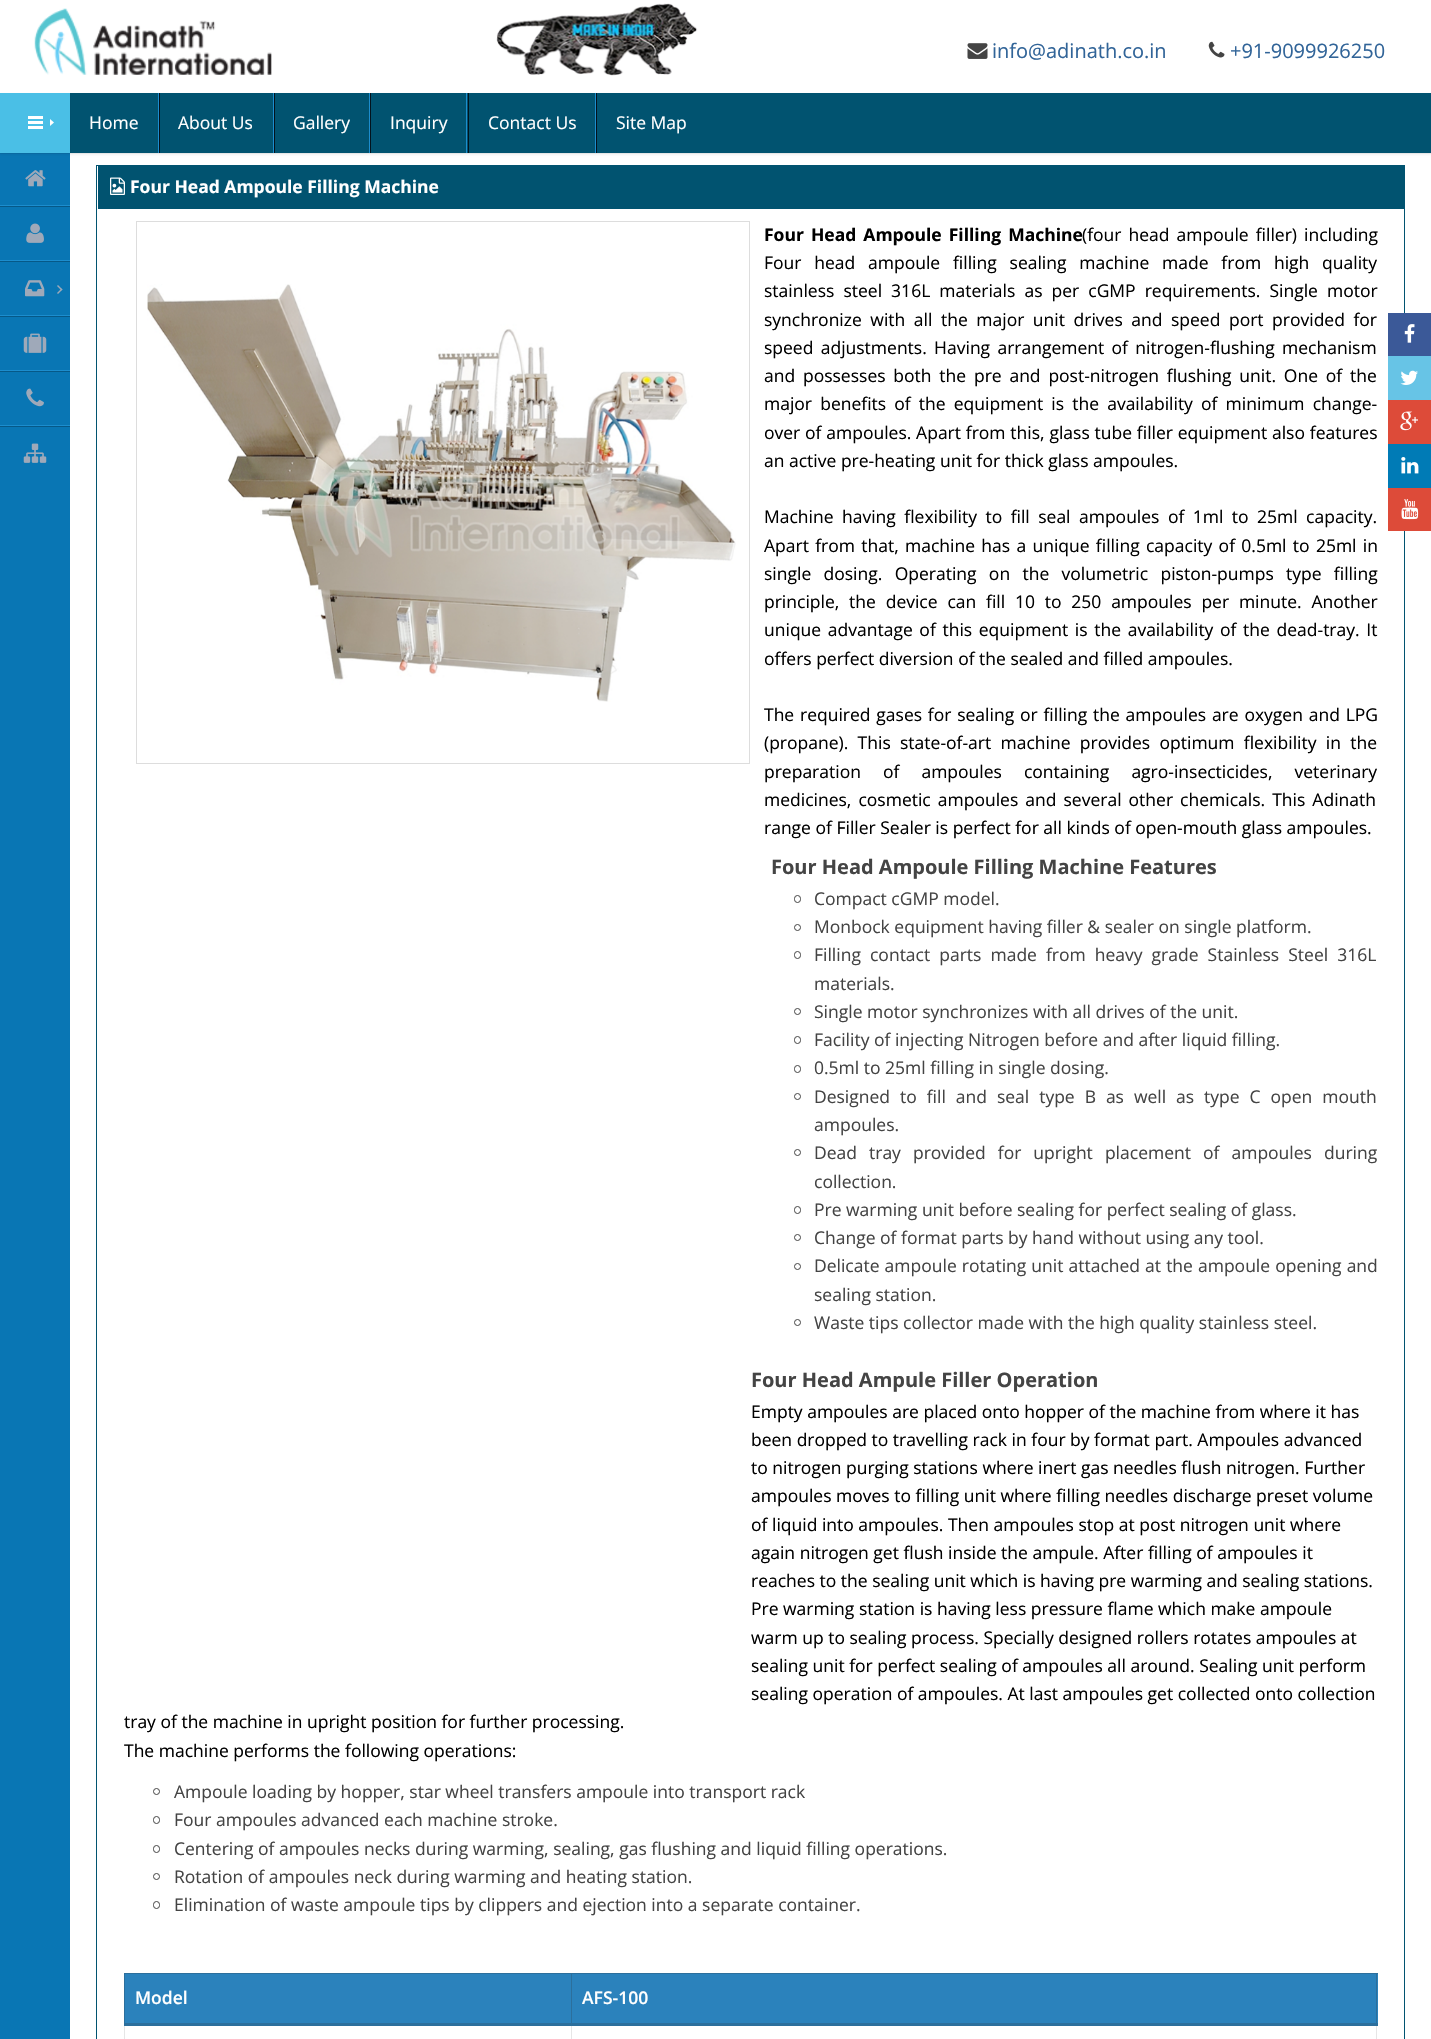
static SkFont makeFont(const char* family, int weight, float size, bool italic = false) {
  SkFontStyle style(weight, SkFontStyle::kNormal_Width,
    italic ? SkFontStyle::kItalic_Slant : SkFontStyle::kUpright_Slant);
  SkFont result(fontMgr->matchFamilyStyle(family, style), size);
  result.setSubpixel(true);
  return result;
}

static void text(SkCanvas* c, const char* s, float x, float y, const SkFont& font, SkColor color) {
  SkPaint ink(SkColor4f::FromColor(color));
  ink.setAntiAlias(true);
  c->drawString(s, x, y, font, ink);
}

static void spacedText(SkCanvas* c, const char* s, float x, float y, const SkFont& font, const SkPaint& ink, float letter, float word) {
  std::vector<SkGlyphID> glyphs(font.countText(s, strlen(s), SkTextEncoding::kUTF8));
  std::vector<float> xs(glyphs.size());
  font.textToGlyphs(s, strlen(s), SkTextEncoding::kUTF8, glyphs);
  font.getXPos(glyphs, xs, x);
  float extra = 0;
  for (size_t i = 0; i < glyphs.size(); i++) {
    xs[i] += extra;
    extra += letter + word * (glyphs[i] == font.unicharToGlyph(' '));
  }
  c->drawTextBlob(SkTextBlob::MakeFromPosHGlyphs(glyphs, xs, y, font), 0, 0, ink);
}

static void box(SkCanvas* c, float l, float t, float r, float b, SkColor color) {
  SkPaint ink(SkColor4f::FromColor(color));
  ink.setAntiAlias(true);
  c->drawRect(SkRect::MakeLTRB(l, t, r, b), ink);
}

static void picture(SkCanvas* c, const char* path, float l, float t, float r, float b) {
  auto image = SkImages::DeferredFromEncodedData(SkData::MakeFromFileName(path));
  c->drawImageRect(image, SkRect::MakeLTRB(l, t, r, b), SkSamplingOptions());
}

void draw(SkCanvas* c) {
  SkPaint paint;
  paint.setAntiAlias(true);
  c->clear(0xffffffff);
  box(c, 571, 2023, 572, 2039, 0xffe6e6e6);
  box(c, 124, 2023, 125, 2039, 0xffe6e6e6);
  box(c, 1376, 2023, 1377, 2039, 0xffe6e6e6);
  picture(c, "img_01.png", 34, 8, 272, 75);
  picture(c, "img_02.png", 496, 3, 698, 76);
  picture(c, "img_03.png", 967, 43, 988, 59);
  SkFont face1 = makeFont("Open Sans", 400, 20);
  text(c, "info@adinath.co.in", 992, 58, face1, 0xff316498);
  picture(c, "img_04.png", 1208, 41, 1225, 58);
  text(c, "+91-9099926250", 1230, 58, face1, 0xff316498);
  box(c, 70, 153, 1431, 154, 0xfff2f2f2);
  paint.setColor(0x0d000000);
  paint.setMaskFilter(SkMaskFilter::MakeBlur(kNormal_SkBlurStyle, 1));
  c->drawRect(SkRect::MakeLTRB(70, 95, 1431, 155), paint);
  paint.setMaskFilter(nullptr);
  box(c, 0, 154, 70, 2039, 0xff0976b4);
  box(c, 0, 153, 70, 154, 0xff0970ab);
  box(c, 70, 93, 1431, 153, 0xff015370);
  paint.setMaskFilter(SkMaskFilter::MakeBlur(kNormal_SkBlurStyle, 1));
  c->drawRect(SkRect::MakeLTRB(0, 95, 70, 155), paint);
  paint.setMaskFilter(nullptr);
  box(c, 0, 93, 70, 153, 0xff4abfe6);
  box(c, 28, 121, 43, 124, 0xffffffff);
  box(c, 28, 116, 43, 119, 0xffffffff);
  box(c, 28, 126, 43, 129, 0xffffffff);
  paint.setColor(0xffffffff);
  c->drawPath(SkPathBuilder().moveTo(50, 126).lineTo(50, 119).lineTo(54, 122.5f).close().detach(), paint);
  box(c, 0, 205, 70, 206, 0xff1c8dce);
  picture(c, "img_05.png", 25, 170, 46, 187);
  box(c, 0, 206, 70, 207, 0xff065988);
  box(c, 0, 260, 70, 261, 0xff1c8dce);
  picture(c, "img_06.png", 26, 223, 44, 243);
  box(c, 0, 261, 70, 262, 0xff065988);
  box(c, 0, 315, 70, 316, 0xff1c8dce);
  picture(c, "img_07.png", 25, 280, 45, 297);
  paint.setColor(0xff9fa9b9);
  c->drawPath(SkPathBuilder().moveTo(58, 285).lineTo(62.5f, 289.5f).lineTo(61.5f, 290.5f).lineTo(57, 286).close().detach(), paint);
  c->drawPath(SkPathBuilder().moveTo(61.5f, 288.5f).lineTo(62.5f, 289.5f).lineTo(58, 294).lineTo(57, 293).close().detach(), paint);
  box(c, 0, 316, 70, 317, 0xff065988);
  box(c, 0, 370, 70, 371, 0xff1c8dce);
  picture(c, "img_08.png", 23, 333, 47, 353);
  box(c, 0, 371, 70, 372, 0xff065988);
  box(c, 0, 425, 70, 426, 0xff1c8dce);
  picture(c, "img_09.png", 26, 388, 44, 407);
  box(c, 0, 426, 70, 427, 0xff065988);
  picture(c, "img_10.png", 23, 443, 47, 463);
  box(c, 158, 93, 159, 153, 0xff1c8dce);
  SkFont face2 = makeFont("Open Sans", 400, 17.5f);
  text(c, "Home", 89, 129, face2, 0xffffffff);
  box(c, 273, 93, 274, 153, 0xff1c8dce);
  box(c, 159, 93, 160, 153, 0xff03131d);
  text(c, "About Us", 178, 129, face2, 0xffffffff);
  box(c, 369, 93, 370, 153, 0xff1c8dce);
  box(c, 274, 93, 275, 153, 0xff03131d);
  text(c, "Gallery", 293, 129, face2, 0xffffffff);
  box(c, 466, 93, 467, 153, 0xff1c8dce);
  box(c, 370, 93, 371, 153, 0xff03131d);
  text(c, "Inquiry", 390, 129, face2, 0xffffffff);
  box(c, 595, 93, 596, 153, 0xff1c8dce);
  box(c, 468, 93, 469, 153, 0xff03131d);
  text(c, "Contact Us", 488, 129, face2, 0xffffffff);
  box(c, 596, 93, 597, 153, 0xff03131d);
  text(c, "Site Map", 616, 129, face2, 0xffffffff);
  paint.setStyle(SkPaint::kStroke_Style);
  paint.setStrokeWidth(1);
  paint.setColor(0xff015370);
  c->drawRect(SkRect::MakeLTRB(96.5f, 165.5f, 1404.5f, 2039.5f), paint);
  box(c, 98, 166, 1404, 209, 0xff015370);
  picture(c, "img_11.png", 110, 177, 125, 195);
  SkFont face3 = makeFont("Open Sans", 700, 17.5f);
  text(c, "Four Head Ampoule Filling Machine", 130, 193, face3, 0xffffffff);
  paint.setColor(0xffdddddd);
  c->drawRect(SkRect::MakeLTRB(136.5f, 221.5f, 749.5f, 763.5f), paint);
  picture(c, "img_12.png", 147, 284, 736, 702);
  paint.setStyle(SkPaint::kFill_Style);
  paint.setColor(0xff000000);
  spacedText(c, "Four Head Ampoule Filling Machine", 764, 241, face3, paint, 0, 2.5f);
  spacedText(c, "(four head ampoule filler) including", 1082, 241, face2, paint, 0, 2.5f);
  spacedText(c, "Four head ampoule filling sealing machine made from high quality", 764, 269, face2, paint, 0, 8.25f);
  spacedText(c, "stainless steel 316L materials as per cGMP requirements. Single motor", 764, 297, face2, paint, 0, 4.5f);
  spacedText(c, "synchronize with all the major unit drives and speed port provided for", 764, 326, face2, paint, 0, 4);
  spacedText(c, "speed adjustments. Having arrangement of nitrogen-flushing mechanism", 764, 354, face2, paint, 0, 2.75f);
  spacedText(c, "and possesses both the pre and post-nitrogen flushing unit. One of the", 764, 382, face2, paint, 0, 3.25f);
  spacedText(c, "major benefits of the equipment is the availability of minimum change-", 764, 410, face2, paint, 0, 3.6f);
  spacedText(c, "over of ampoules. Apart from this, glass tube filler equipment also features", 764, 439, face2, paint, 0, 0.25f);
  text(c, "an active pre-heating unit for thick glass ampoules.", 764, 467, face2, 0xff000000);
  spacedText(c, "Machine having flexibility to fill seal ampoules of 1ml to 25ml capacity.", 764, 523, face2, paint, 0, 3.9f);
  spacedText(c, "Apart from that, machine has a unique filling capacity of 0.5ml to 25ml in", 764, 552, face2, paint, 0, 1.75f);
  spacedText(c, "single dosing. Operating on the volumetric piston-pumps type filling", 764, 580, face2, paint, 0, 7.75f);
  spacedText(c, "principle, the device can fill 10 to 250 ampoules per minute. Another", 764, 608, face2, paint, 0, 5.25f);
  spacedText(c, "unique advantage of this equipment is the availability of the dead-tray. It", 764, 636, face2, paint, 0, 2.1f);
  text(c, "offers perfect diversion of the sealed and filled ampoules.", 764, 665, face2, 0xff000000);
  spacedText(c, "The required gases for sealing or filling the ampoules are oxygen and LPG", 764, 721, face2, paint, 0, 1.25f);
  spacedText(c, "(propane). This state-of-art machine provides optimum flexibility in the", 764, 749, face2, paint, 0, 4.75f);
  spacedText(c, "preparation of ampoules containing agro-insecticides, veterinary", 764, 778, face2, paint, 0, 17.5f);
  spacedText(c, "medicines, cosmetic ampoules and several other chemicals. This Adinath", 764, 806, face2, paint, 0, 2.5f);
  text(c, "range of Filler Sealer is perfect for all kinds of open-mouth glass ampoules.", 764, 834, face2, 0xff000000);
  SkFont face4 = makeFont("Open Sans", 700, 20);
  text(c, "Four Head Ampoule Filling Machine Features", 771, 874, face4, 0xff444444);
  paint.setStyle(SkPaint::kStroke_Style);
  paint.setColor(0xff444444);
  c->drawRoundRect(SkRect::MakeLTRB(794.5f, 895.5f, 800.5f, 902.5f), 3, 3, paint);
  text(c, "Compact cGMP model.", 814, 905, face2, 0xff444444);
  c->drawCircle(797.5f, 927.5f, 3, paint);
  text(c, "Monbock equipment having filler & sealer on single platform.", 814, 933, face2, 0xff444444);
  c->drawRoundRect(SkRect::MakeLTRB(794.5f, 951.5f, 800.5f, 958.5f), 3, 3, paint);
  paint.setStyle(SkPaint::kFill_Style);
  spacedText(c, "Filling contact parts made from heavy grade Stainless Steel 316L", 814, 961, face2, paint, 0, 4.5f);
  text(c, "materials.", 814, 990, face2, 0xff444444);
  paint.setStyle(SkPaint::kStroke_Style);
  c->drawCircle(797.5f, 1011.5f, 3, paint);
  text(c, "Single motor synchronizes with all drives of the unit.", 814, 1018, face2, 0xff444444);
  c->drawRoundRect(SkRect::MakeLTRB(794.5f, 1036.5f, 800.5f, 1043.5f), 3, 3, paint);
  text(c, "Facility of injecting Nitrogen before and after liquid filling.", 814, 1046, face2, 0xff444444);
  c->drawRoundRect(SkRect::MakeLTRB(794.5f, 1065.5f, 800.5f, 1072.5f), 3, 3, paint);
  text(c, "0.5ml to 25ml filling in single dosing.", 814, 1074, face2, 0xff444444);
  c->drawCircle(797.5f, 1096.5f, 3, paint);
  paint.setStyle(SkPaint::kFill_Style);
  spacedText(c, "Designed to fill and seal type B as well as type C open mouth", 814, 1103, face2, paint, 0, 5.4f);
  text(c, "ampoules.", 814, 1131, face2, 0xff444444);
  paint.setStyle(SkPaint::kStroke_Style);
  c->drawCircle(797.5f, 1152.5f, 3, paint);
  paint.setStyle(SkPaint::kFill_Style);
  spacedText(c, "Dead tray provided for upright placement of ampoules during", 814, 1159, face2, paint, 0, 7.5f);
  text(c, "collection.", 814, 1188, face2, 0xff444444);
  paint.setStyle(SkPaint::kStroke_Style);
  c->drawRoundRect(SkRect::MakeLTRB(794.5f, 1206.5f, 800.5f, 1213.5f), 3, 3, paint);
  text(c, "Pre warming unit before sealing for perfect sealing of glass.", 814, 1216, face2, 0xff444444);
  c->drawCircle(797.5f, 1237.5f, 3, paint);
  text(c, "Change of format parts by hand without using any tool.", 814, 1244, face2, 0xff444444);
  c->drawCircle(797.5f, 1266.5f, 3, paint);
  paint.setStyle(SkPaint::kFill_Style);
  spacedText(c, "Delicate ampoule rotating unit attached at the ampoule opening and", 814, 1272, face2, paint, 0, 0.5f);
  text(c, "sealing station.", 814, 1301, face2, 0xff444444);
  paint.setStyle(SkPaint::kStroke_Style);
  c->drawCircle(797.5f, 1322.5f, 3, paint);
  text(c, "Waste tips collector made with the high quality stainless steel.", 814, 1329, face2, 0xff444444);
  text(c, "Four Head Ampule Filler Operation", 751, 1387, face4, 0xff444444);
  text(c, "Empty ampoules are placed onto hopper of the machine from where it has", 751, 1418, face2, 0xff000000);
  text(c, "been dropped to travelling rack in four by format part. Ampoules advanced", 751, 1446, face2, 0xff000000);
  text(c, "to nitrogen purging stations where inert gas needles flush nitrogen. Further", 751, 1474, face2, 0xff000000);
  text(c, "ampoules moves to filling unit where filling needles discharge preset volume", 751, 1502, face2, 0xff000000);
  text(c, "of liquid into ampoules. Then ampoules stop at post nitrogen unit where", 751, 1531, face2, 0xff000000);
  text(c, "again nitrogen get flush inside the ampule. After filling of ampoules it", 751, 1559, face2, 0xff000000);
  text(c, "reaches to the sealing unit which is having pre warming and sealing stations.", 751, 1587, face2, 0xff000000);
  text(c, "Pre warming station is having less pressure flame which make ampoule", 751, 1615, face2, 0xff000000);
  text(c, "warm up to sealing process. Specially designed rollers rotates ampoules at", 751, 1644, face2, 0xff000000);
  text(c, "sealing unit for perfect sealing of ampoules all around. Sealing unit perform", 751, 1672, face2, 0xff000000);
  text(c, "sealing operation of ampoules. At last ampoules get collected onto collection", 751, 1700, face2, 0xff000000);
  text(c, "tray of the machine in upright position for further processing.", 124, 1728, face2, 0xff000000);
  text(c, "The machine performs the following operations:", 124, 1757, face2, 0xff000000);
  c->drawCircle(156.5f, 1791.5f, 3, paint);
  text(c, "Ampoule loading by hopper, star wheel transfers ampoule into transport rack", 174, 1798, face2, 0xff444444);
  c->drawRoundRect(SkRect::MakeLTRB(153.5f, 1816.5f, 159.5f, 1823.5f), 3, 3, paint);
  text(c, "Four ampoules advanced each machine stroke.", 174, 1826, face2, 0xff444444);
  c->drawRoundRect(SkRect::MakeLTRB(153.5f, 1845.5f, 159.5f, 1852.5f), 3, 3, paint);
  text(c, "Centering of ampoules necks during warming, sealing, gas flushing and liquid filling operations.", 174, 1855, face2, 0xff444444);
  c->drawCircle(156.5f, 1876.5f, 3, paint);
  text(c, "Rotation of ampoules neck during warming and heating station.", 174, 1883, face2, 0xff444444);
  c->drawRoundRect(SkRect::MakeLTRB(153.5f, 1901.5f, 159.5f, 1908.5f), 3, 3, paint);
  text(c, "Elimination of waste ampoule tips by clippers and ejection into a separate container.", 174, 1911, face2, 0xff444444);
  box(c, 124, 1973, 1378, 1974, 0xff2c6f9c);
  box(c, 125, 1974, 1378, 2023, 0xff2b82bc);
  box(c, 124, 1973, 125, 2024, 0xff2c6f9c);
  SkFont face5 = makeFont("Open Sans", 600, 17.5f);
  text(c, "Model", 135, 2004, face5, 0xffffffff);
  box(c, 1376, 1973, 1377, 2024, 0xff2c6f9c);
  box(c, 571, 1973, 572, 2024, 0xff2c6f9c);
  box(c, 124, 2023, 1378, 2026, 0xff2c6f9c);
  text(c, "AFS-100", 582, 2004, face5, 0xffffffff);
  box(c, 1388, 313, 1431, 356, 0xff3b5998);
  picture(c, "img_13.png", 1404, 324, 1415, 343);
  box(c, 1388, 356, 1431, 400, 0xff67c4e6);
  picture(c, "img_14.png", 1400, 370, 1418, 385);
  box(c, 1388, 400, 1431, 444, 0xffdd4b39);
  picture(c, "img_15.png", 1400, 411, 1418, 431);
  box(c, 1388, 444, 1431, 488, 0xff007bb6);
  picture(c, "img_16.png", 1401, 457, 1419, 474);
  box(c, 1388, 488, 1431, 531, 0xffdd4b39);
  picture(c, "img_17.png", 1401, 499, 1419, 520);
}
